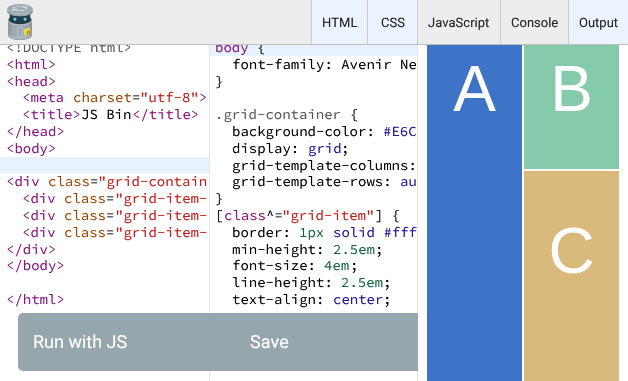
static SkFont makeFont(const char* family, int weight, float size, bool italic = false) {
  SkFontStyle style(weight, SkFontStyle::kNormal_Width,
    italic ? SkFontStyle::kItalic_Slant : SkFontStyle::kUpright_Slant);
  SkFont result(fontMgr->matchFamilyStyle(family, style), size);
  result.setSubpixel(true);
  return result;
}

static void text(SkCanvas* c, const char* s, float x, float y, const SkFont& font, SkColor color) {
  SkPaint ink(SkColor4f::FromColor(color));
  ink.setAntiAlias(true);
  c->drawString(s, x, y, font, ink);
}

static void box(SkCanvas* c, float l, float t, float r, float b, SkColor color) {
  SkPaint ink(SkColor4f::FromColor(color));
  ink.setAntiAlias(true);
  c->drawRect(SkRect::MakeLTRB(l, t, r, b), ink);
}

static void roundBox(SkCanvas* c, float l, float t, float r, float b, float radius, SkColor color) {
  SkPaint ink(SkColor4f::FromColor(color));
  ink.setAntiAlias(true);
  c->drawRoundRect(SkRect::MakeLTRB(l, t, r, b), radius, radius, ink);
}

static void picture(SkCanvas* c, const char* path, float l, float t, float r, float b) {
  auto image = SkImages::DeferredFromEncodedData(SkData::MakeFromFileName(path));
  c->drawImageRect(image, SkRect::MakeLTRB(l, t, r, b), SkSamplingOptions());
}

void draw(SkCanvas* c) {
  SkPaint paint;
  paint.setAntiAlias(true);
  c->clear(0xffffffff);
  SkFont face1 = makeFont("Source Code Pro", 400, 14);
  text(c, "<!DOCTYPE html>", 6, 52, face1, 0xff555555);
  box(c, 210, 45, 417, 56, 0xffe8f2ff);
  text(c, "body", 215, 52, face1, 0xff881280);
  text(c, "{", 257, 52, face1, 0xff000000);
  box(c, 0, 0, 568, 44, 0xffededed);
  picture(c, "img_01.png", 7, 4, 33, 40);
  box(c, 0, 44, 628, 45, 0xffbfbfbf);
  box(c, 312, 0, 367, 44, 0xffebf3ff);
  box(c, 311, 0, 312, 44, 0xffcccccc);
  SkFont face2 = makeFont("Roboto", 400, 13);
  text(c, "HTML", 322, 27, face2, 0xff232323);
  box(c, 368, 0, 417, 44, 0xffebf3ff);
  box(c, 367, 0, 368, 44, 0xffcccccc);
  text(c, "CSS", 381, 27, face2, 0xff232323);
  box(c, 417, 0, 418, 44, 0xffcccccc);
  text(c, "JavaScript", 428, 27, face2, 0xff232323);
  box(c, 500, 0, 501, 44, 0xffcccccc);
  text(c, "Console", 511, 27, face2, 0xff232323);
  box(c, 569, 0, 628, 44, 0xffebf3ff);
  box(c, 568, 0, 569, 44, 0xffcccccc);
  text(c, "Output", 579, 27, face2, 0xff232323);
  text(c, "<html>", 6, 69, face1, 0xff881280);
  text(c, "<head>", 6, 86, face1, 0xff881280);
  text(c, "<meta", 22, 102, face1, 0xff881280);
  text(c, "charset", 73, 102, face1, 0xff994500);
  text(c, "=", 132, 102, face1, 0xff000000);
  text(c, "\"utf-8\"", 140, 102, face1, 0xffc41a16);
  text(c, ">", 199, 102, face1, 0xff881280);
  text(c, "<title>", 22, 119, face1, 0xff881280);
  text(c, "JS Bin", 81, 119, face1, 0xff000000);
  text(c, "</title>", 132, 119, face1, 0xff881280);
  text(c, "</head>", 6, 136, face1, 0xff881280);
  text(c, "<body>", 6, 153, face1, 0xff881280);
  box(c, 0, 157, 209, 173, 0xffe8f2ff);
  text(c, "<div", 6, 186, face1, 0xff881280);
  text(c, "class", 48, 186, face1, 0xff994500);
  text(c, "=", 90, 186, face1, 0xff000000);
  text(c, "\"grid-contain", 98, 186, face1, 0xffc41a16);
  text(c, "<div", 22, 203, face1, 0xff881280);
  text(c, "class", 64, 203, face1, 0xff994500);
  text(c, "=", 106, 203, face1, 0xff000000);
  text(c, "\"grid-item-", 115, 203, face1, 0xffc41a16);
  text(c, "<div", 22, 220, face1, 0xff881280);
  text(c, "class", 64, 220, face1, 0xff994500);
  text(c, "=", 106, 220, face1, 0xff000000);
  text(c, "\"grid-item-", 115, 220, face1, 0xffc41a16);
  text(c, "<div", 22, 237, face1, 0xff881280);
  text(c, "class", 64, 237, face1, 0xff994500);
  text(c, "=", 106, 237, face1, 0xff000000);
  text(c, "\"grid-item-", 115, 237, face1, 0xffc41a16);
  text(c, "</div>", 6, 254, face1, 0xff881280);
  text(c, "</body>", 6, 270, face1, 0xff881280);
  text(c, "</html>", 6, 304, face1, 0xff881280);
  box(c, 209, 45, 210, 381, 0xffe6e6e6);
  text(c, "font-family: Avenir Ne", 232, 69, face1, 0xff000000);
  text(c, "}", 215, 86, face1, 0xff000000);
  text(c, ".grid-container", 215, 119, face1, 0xff555555);
  text(c, "{", 350, 119, face1, 0xff000000);
  text(c, "background-color:", 232, 136, face1, 0xff000000);
  text(c, "#E6C", 383, 136, face1, 0xff221199);
  text(c, "display:", 232, 153, face1, 0xff000000);
  text(c, "grid", 308, 153, face1, 0xff221199);
  text(c, ";", 341, 153, face1, 0xff000000);
  text(c, "grid-template-columns:", 232, 170, face1, 0xff000000);
  text(c, "grid-template-rows:", 232, 186, face1, 0xff000000);
  text(c, "au", 400, 186, face1, 0xff221199);
  text(c, "}", 215, 203, face1, 0xff000000);
  text(c, "[", 215, 220, face1, 0xff000000);
  text(c, "class", 224, 220, face1, 0xff881280);
  text(c, "^=", 266, 220, face1, 0xff000000);
  text(c, "\"grid-item\"", 282, 220, face1, 0xffc41a16);
  text(c, "] {", 375, 220, face1, 0xff000000);
  text(c, "border:", 232, 237, face1, 0xff000000);
  text(c, "1px", 299, 237, face1, 0xff116644);
  text(c, "solid #fff", 333, 237, face1, 0xff221199);
  text(c, "min-height:", 232, 254, face1, 0xff000000);
  text(c, "2.5em", 333, 254, face1, 0xff116644);
  text(c, ";", 375, 254, face1, 0xff000000);
  text(c, "font-size:", 232, 270, face1, 0xff000000);
  text(c, "4em", 324, 270, face1, 0xff116644);
  text(c, ";", 350, 270, face1, 0xff000000);
  text(c, "line-height:", 232, 287, face1, 0xff000000);
  text(c, "2.5em", 341, 287, face1, 0xff116644);
  text(c, ";", 383, 287, face1, 0xff000000);
  text(c, "text-align:", 232, 304, face1, 0xff000000);
  text(c, "center", 333, 304, face1, 0xff221199);
  text(c, ";", 383, 304, face1, 0xff000000);
  box(c, 417, 45, 418, 381, 0xffe6e6e6);
  roundBox(c, 18, 313, 608, 371, 5, 0xff95a6ad);
  box(c, 418, 313, 608, 371, 0xffffffff);
  picture(c, "img_02.png", 427, 45, 619, 381);
  SkFont face3 = makeFont("Roboto", 400, 18);
  text(c, "Run with JS", 33, 348, face3, 0xffffffff);
  text(c, "Save", 250, 348, face3, 0xffffffff);
}
